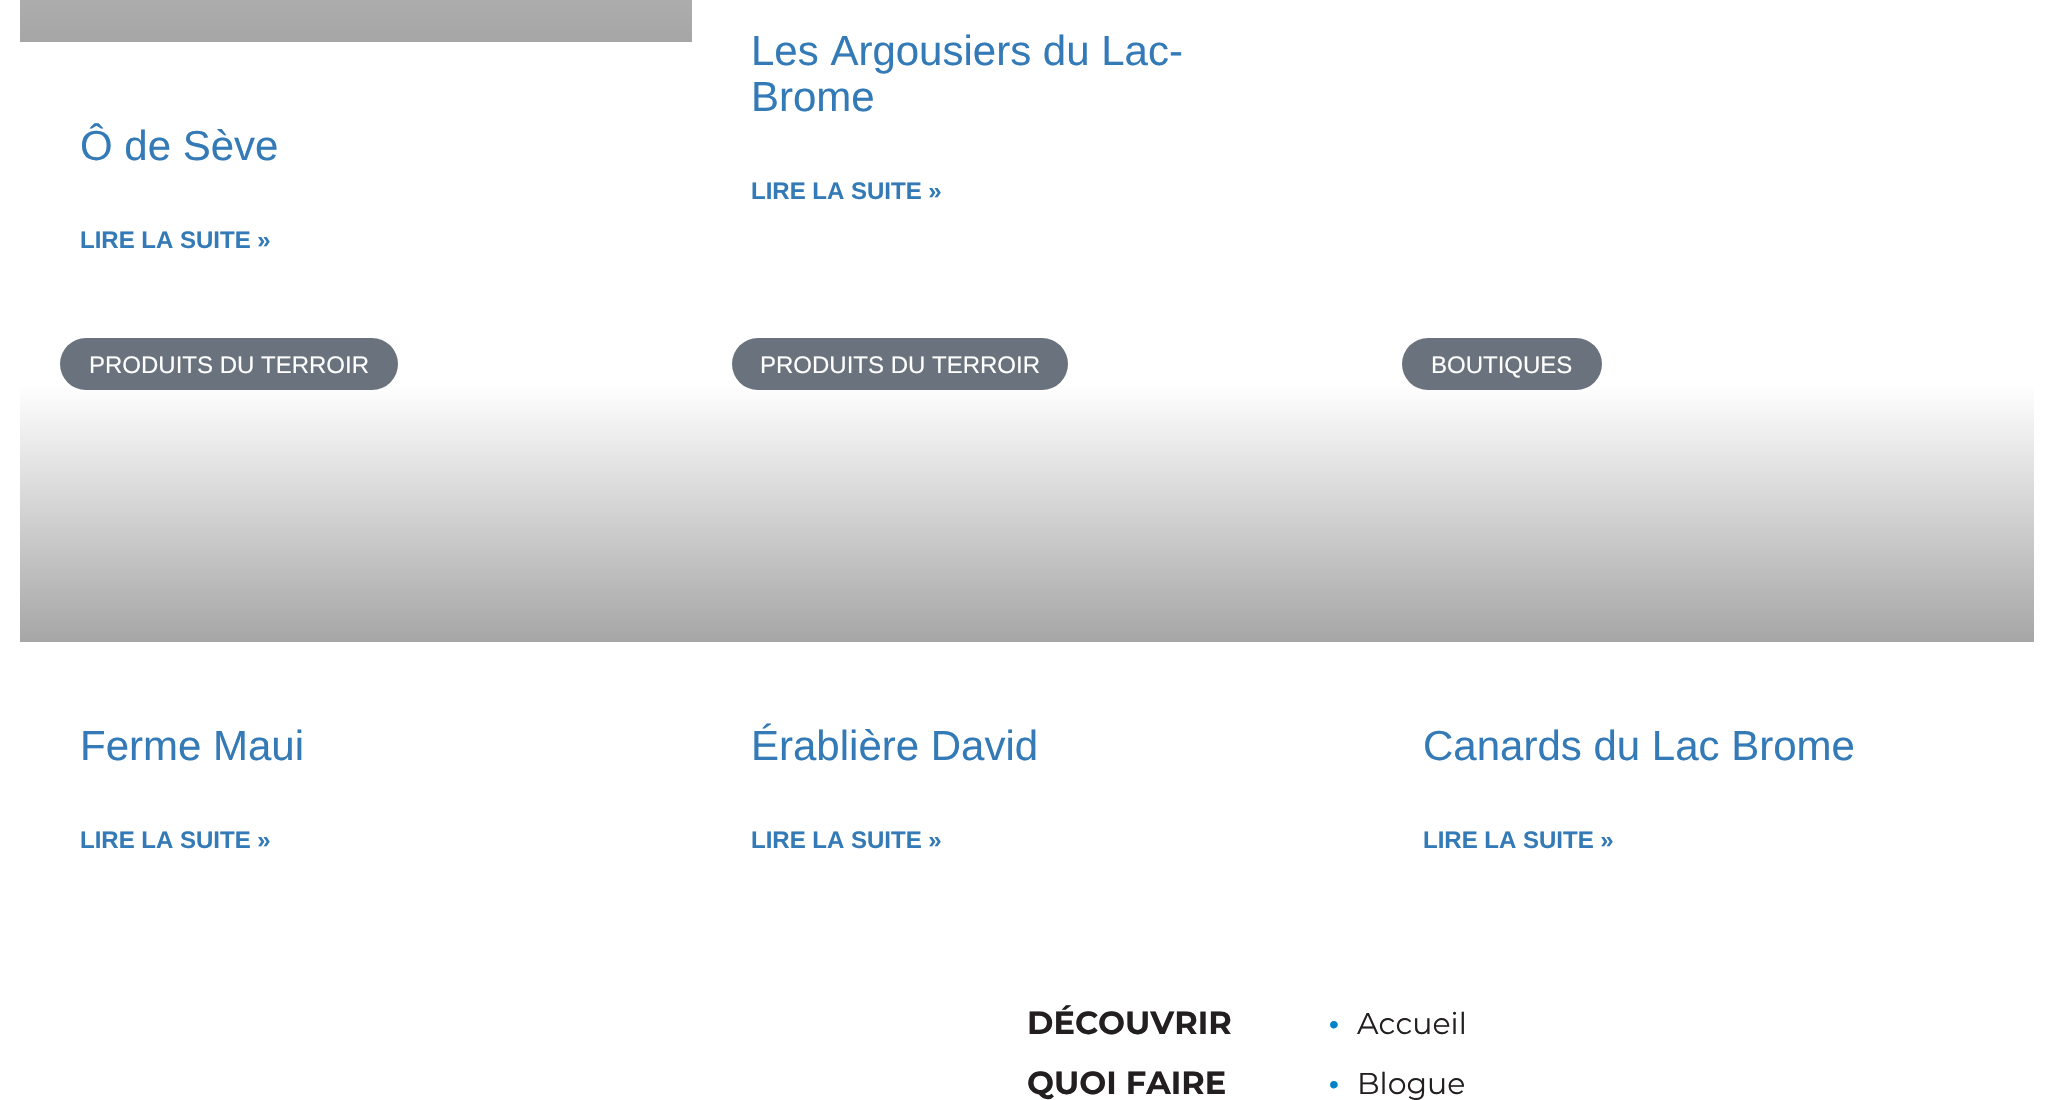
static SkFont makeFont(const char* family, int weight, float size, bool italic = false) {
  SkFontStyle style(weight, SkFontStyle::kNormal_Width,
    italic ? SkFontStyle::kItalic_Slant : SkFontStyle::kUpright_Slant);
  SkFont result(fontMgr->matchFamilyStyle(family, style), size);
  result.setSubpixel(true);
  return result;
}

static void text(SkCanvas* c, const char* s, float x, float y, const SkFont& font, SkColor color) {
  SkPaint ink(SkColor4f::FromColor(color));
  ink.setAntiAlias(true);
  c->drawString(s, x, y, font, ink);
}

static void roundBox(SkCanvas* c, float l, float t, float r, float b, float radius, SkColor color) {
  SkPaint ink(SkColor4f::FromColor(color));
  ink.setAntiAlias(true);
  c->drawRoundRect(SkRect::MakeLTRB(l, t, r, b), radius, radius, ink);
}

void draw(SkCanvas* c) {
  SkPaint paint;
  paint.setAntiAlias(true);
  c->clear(0xffffffff);
  {
    const SkColor colors[] = {0xffa6a6a6, 0xffffffff};
    const float stops[] = {0, 0.75f};
    const SkPoint ends[] = {{356, 42}, {356, -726}};
    paint.setShader(SkGradientShader::MakeLinear(ends, colors, stops, 2, SkTileMode::kClamp));
    paint.setAlpha(255);
  }
  c->drawRect(SkRect::MakeLTRB(20, 0, 692, 42), paint);
  SkFont face1 = makeFont("Liberation Sans", 400, 42);
  text(c, "Ô de Sève", 80, 160, face1, 0xff337ab7);
  SkFont face2 = makeFont("Liberation Sans", 700, 24);
  text(c, "LIRE LA SUITE »", 80, 248, face2, 0xff337ab7);
  text(c, "Les Argousiers du Lac-", 751, 65, face1, 0xff337ab7);
  text(c, "Brome", 751, 111, face1, 0xff337ab7);
  text(c, "LIRE LA SUITE »", 751, 199, face2, 0xff337ab7);
  {
    const SkColor colors[] = {0xffa6a6a6, 0xffffffff};
    const float stops[] = {0, 0.75f};
    const SkPoint ends[] = {{356, 642}, {356, 298}};
    paint.setShader(SkGradientShader::MakeLinear(ends, colors, stops, 2, SkTileMode::kClamp));
    paint.setAlpha(255);
  }
  c->drawPath(SkPathBuilder().moveTo(26, 298).lineTo(686, 298).cubicTo(689.5f, 298, 692, 300.5f, 692, 304).lineTo(692, 642).lineTo(20, 642).lineTo(20, 304).cubicTo(20, 300.5f, 22.5f, 298, 26, 298).close().detach(), paint);
  roundBox(c, 60, 338, 398, 390, 26, 0xff69727d);
  SkFont face3 = makeFont("Liberation Sans", 400, 24);
  text(c, "PRODUITS DU TERROIR", 89, 373, face3, 0xffffffff);
  text(c, "Ferme Maui", 80, 760, face1, 0xff337ab7);
  text(c, "LIRE LA SUITE »", 80, 848, face2, 0xff337ab7);
  {
    const SkColor colors[] = {0xffa6a6a6, 0xffffffff};
    const float stops[] = {0, 0.75f};
    const SkPoint ends[] = {{1027, 642}, {1027, 298}};
    paint.setShader(SkGradientShader::MakeLinear(ends, colors, stops, 2, SkTileMode::kClamp));
    paint.setAlpha(255);
  }
  c->drawPath(SkPathBuilder().moveTo(698, 298).lineTo(1356, 298).cubicTo(1359.5f, 298, 1362, 300.5f, 1362, 304).lineTo(1362, 642).lineTo(692, 642).lineTo(692, 304).cubicTo(692, 300.5f, 694.5f, 298, 698, 298).close().detach(), paint);
  roundBox(c, 732, 338, 1068, 390, 26, 0xff69727d);
  text(c, "PRODUITS DU TERROIR", 760, 373, face3, 0xffffffff);
  text(c, "Érablière David", 751, 760, face1, 0xff337ab7);
  text(c, "LIRE LA SUITE »", 751, 848, face2, 0xff337ab7);
  {
    const SkColor colors[] = {0xffa6a6a6, 0xffffffff};
    const float stops[] = {0, 0.75f};
    const SkPoint ends[] = {{1698, 642}, {1698, 298}};
    paint.setShader(SkGradientShader::MakeLinear(ends, colors, stops, 2, SkTileMode::kClamp));
    paint.setAlpha(255);
  }
  c->drawPath(SkPathBuilder().moveTo(1368, 298).lineTo(2028, 298).cubicTo(2031.5f, 298, 2034, 300.5f, 2034, 304).lineTo(2034, 642).lineTo(1362, 642).lineTo(1362, 304).cubicTo(1362, 300.5f, 1364.5f, 298, 1368, 298).close().detach(), paint);
  roundBox(c, 1402, 338, 1602, 390, 26, 0xff69727d);
  text(c, "BOUTIQUES", 1431, 373, face3, 0xffffffff);
  text(c, "Canards du Lac Brome", 1423, 760, face1, 0xff337ab7);
  text(c, "LIRE LA SUITE »", 1423, 848, face2, 0xff337ab7);
  SkFont face4 = makeFont("Montserrat", 700, 32);
  text(c, "DÉCOUVRIR", 1027, 1034, face4, 0xff231f20);
  text(c, "QUOI FAIRE", 1027, 1094, face4, 0xff231f20);
  SkFont face5 = makeFont("Liberation Sans", 400, 28);
  text(c, "•", 1329, 1034, face5, 0xff0082cb);
  SkFont face6 = makeFont("Montserrat", 400, 30);
  text(c, "Accueil", 1357, 1034, face6, 0xff231f20);
  text(c, "•", 1329, 1094, face5, 0xff0082cb);
  text(c, "Blogue", 1357, 1094, face6, 0xff231f20);
}
